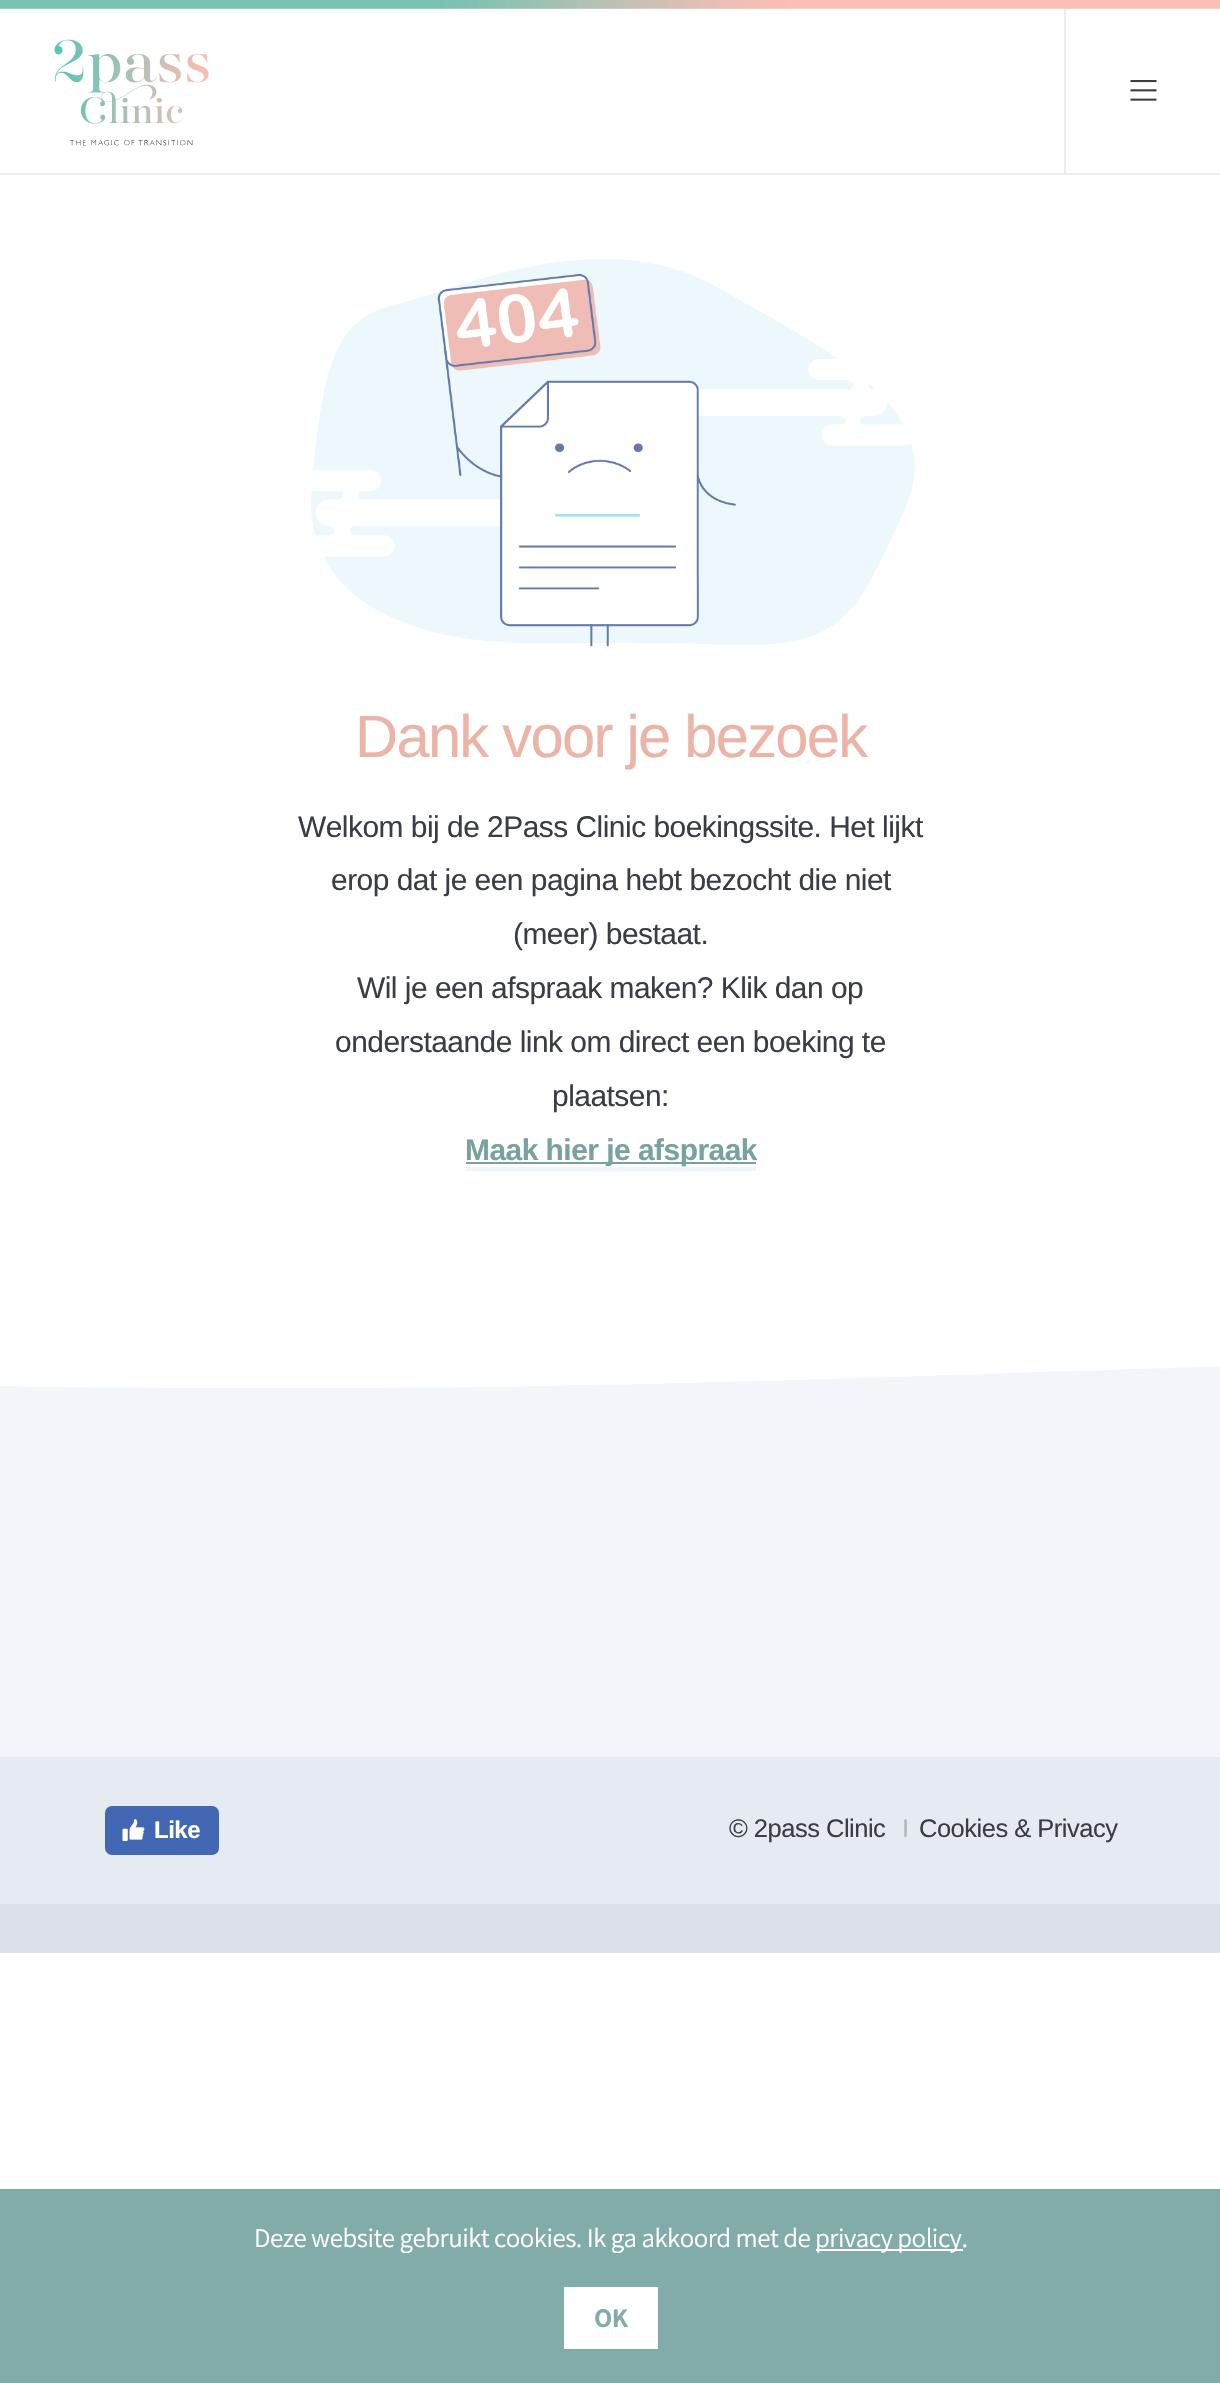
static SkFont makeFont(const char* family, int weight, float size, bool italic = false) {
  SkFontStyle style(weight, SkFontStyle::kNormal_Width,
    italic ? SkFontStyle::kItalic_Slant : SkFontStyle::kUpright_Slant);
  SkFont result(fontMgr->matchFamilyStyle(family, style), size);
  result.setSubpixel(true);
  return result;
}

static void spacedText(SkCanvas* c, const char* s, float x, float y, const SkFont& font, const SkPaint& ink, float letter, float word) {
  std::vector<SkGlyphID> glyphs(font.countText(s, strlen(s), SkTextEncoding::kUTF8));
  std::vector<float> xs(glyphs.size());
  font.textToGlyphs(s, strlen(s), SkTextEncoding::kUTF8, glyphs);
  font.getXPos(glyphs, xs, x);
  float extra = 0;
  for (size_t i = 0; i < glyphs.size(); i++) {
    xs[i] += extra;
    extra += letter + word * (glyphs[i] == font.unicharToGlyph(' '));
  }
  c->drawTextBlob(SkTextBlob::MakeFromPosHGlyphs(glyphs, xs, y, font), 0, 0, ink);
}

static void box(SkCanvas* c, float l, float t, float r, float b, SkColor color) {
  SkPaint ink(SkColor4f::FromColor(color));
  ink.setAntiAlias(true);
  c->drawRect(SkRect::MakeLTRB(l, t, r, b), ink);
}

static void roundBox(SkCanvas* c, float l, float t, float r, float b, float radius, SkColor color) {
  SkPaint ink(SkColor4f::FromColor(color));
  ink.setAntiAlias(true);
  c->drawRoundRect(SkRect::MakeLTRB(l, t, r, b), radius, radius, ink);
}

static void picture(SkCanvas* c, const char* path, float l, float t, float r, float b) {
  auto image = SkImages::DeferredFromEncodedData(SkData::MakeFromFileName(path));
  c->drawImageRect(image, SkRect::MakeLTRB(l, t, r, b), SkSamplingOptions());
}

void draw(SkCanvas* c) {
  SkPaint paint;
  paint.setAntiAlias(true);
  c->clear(0xffffffff);
  box(c, 0, 173, 1220, 175, 0xffededed);
  picture(c, "img_01.png", 0, 0, 1220, 9);
  picture(c, "img_02.png", 54, 39, 209, 146);
  box(c, 1064, 9, 1066, 173, 0xffededed);
  picture(c, "img_03.png", 1130, 80, 1157, 101);
  picture(c, "img_04.png", 311, 259, 915, 647);
  SkFont face1 = makeFont("Liberation Sans", 400, 59.75f);
  paint.setColor(0xffebb4a7);
  spacedText(c, "Dank voor je bezoek", 355, 757, face1, paint, -1.75f, 0);
  SkFont face2 = makeFont("Liberation Sans", 400, 29.9f);
  paint.setColor(0xff3a3e44);
  spacedText(c, "Welkom bij de 2Pass Clinic boekingssite. Het lijkt", 298, 837, face2, paint, -0.5f, 0);
  spacedText(c, "erop dat je een pagina hebt bezocht die niet", 331, 890, face2, paint, -0.5f, 0);
  spacedText(c, "(meer) bestaat.", 513, 944, face2, paint, -0.5f, 0);
  spacedText(c, "Wil je een afspraak maken? Klik dan op", 357, 998, face2, paint, -0.5f, 0);
  spacedText(c, "onderstaande link om direct een boeking te", 335, 1052, face2, paint, -0.5f, 0);
  spacedText(c, "plaatsen:", 552, 1106, face2, paint, -0.5f, 0);
  box(c, 466, 1162, 756, 1164, 0xff78a2a0);
  SkFont face3 = makeFont("Liberation Sans", 700, 29.9f);
  paint.setColor(0xff78a2a0);
  spacedText(c, "Maak hier je afspraak", 465, 1160, face3, paint, -0.5f, 0);
  box(c, 466, 1167, 756, 1171, 0xfff0f5fb);
  box(c, 0, 1388, 1220, 1757, 0xfff2f6fa);
  picture(c, "img_05.png", 0, 1337, 1220, 1388);
  box(c, 0, 1757, 1220, 1904, 0xffe6ebf1);
  roundBox(c, 105, 1806, 219, 1855, 7, 0xff4267b2);
  picture(c, "img_06.png", 122, 1819, 145, 1841);
  SkFont face4 = makeFont("Liberation Sans", 700, 24);
  paint.setColor(0xffffffff);
  spacedText(c, "Like", 154, 1838, face4, paint, -0.5f, 0);
  SkFont face5 = makeFont("Liberation Sans", 400, 25.5f);
  paint.setColor(0xff3a3e44);
  spacedText(c, "© 2pass Clinic", 729, 1837, face5, paint, -0.5f, 0);
  paint.setColor(0xffabb7c8);
  spacedText(c, "I", 902, 1837, face5, paint, -0.5f, 0);
  paint.setColor(0xff3a3e44);
  spacedText(c, "Cookies & Privacy", 919, 1837, face5, paint, -0.5f, 0);
  box(c, 0, 1904, 1220, 1953, 0xffdce1e7);
  box(c, 0, 2189, 1220, 2383, 0xff82acaa);
  SkFont face6 = makeFont("Assistant", 400, 26.9f);
  paint.setColor(0xffffffff);
  spacedText(c, "Deze website gebruikt cookies. Ik ga akkoord met de", 254, 2247, face6, paint, -0.5f, 0);
  box(c, 816, 2249, 963, 2251, 0xffffffff);
  spacedText(c, "privacy policy.", 815, 2247, face6, paint, -0.5f, 0);
  box(c, 564, 2287, 658, 2349, 0xffffffff);
  SkFont face7 = makeFont("Assistant", 700, 26.9f);
  paint.setColor(0xff82acaa);
  spacedText(c, "OK", 594, 2327, face7, paint, -0.5f, 0);
}
